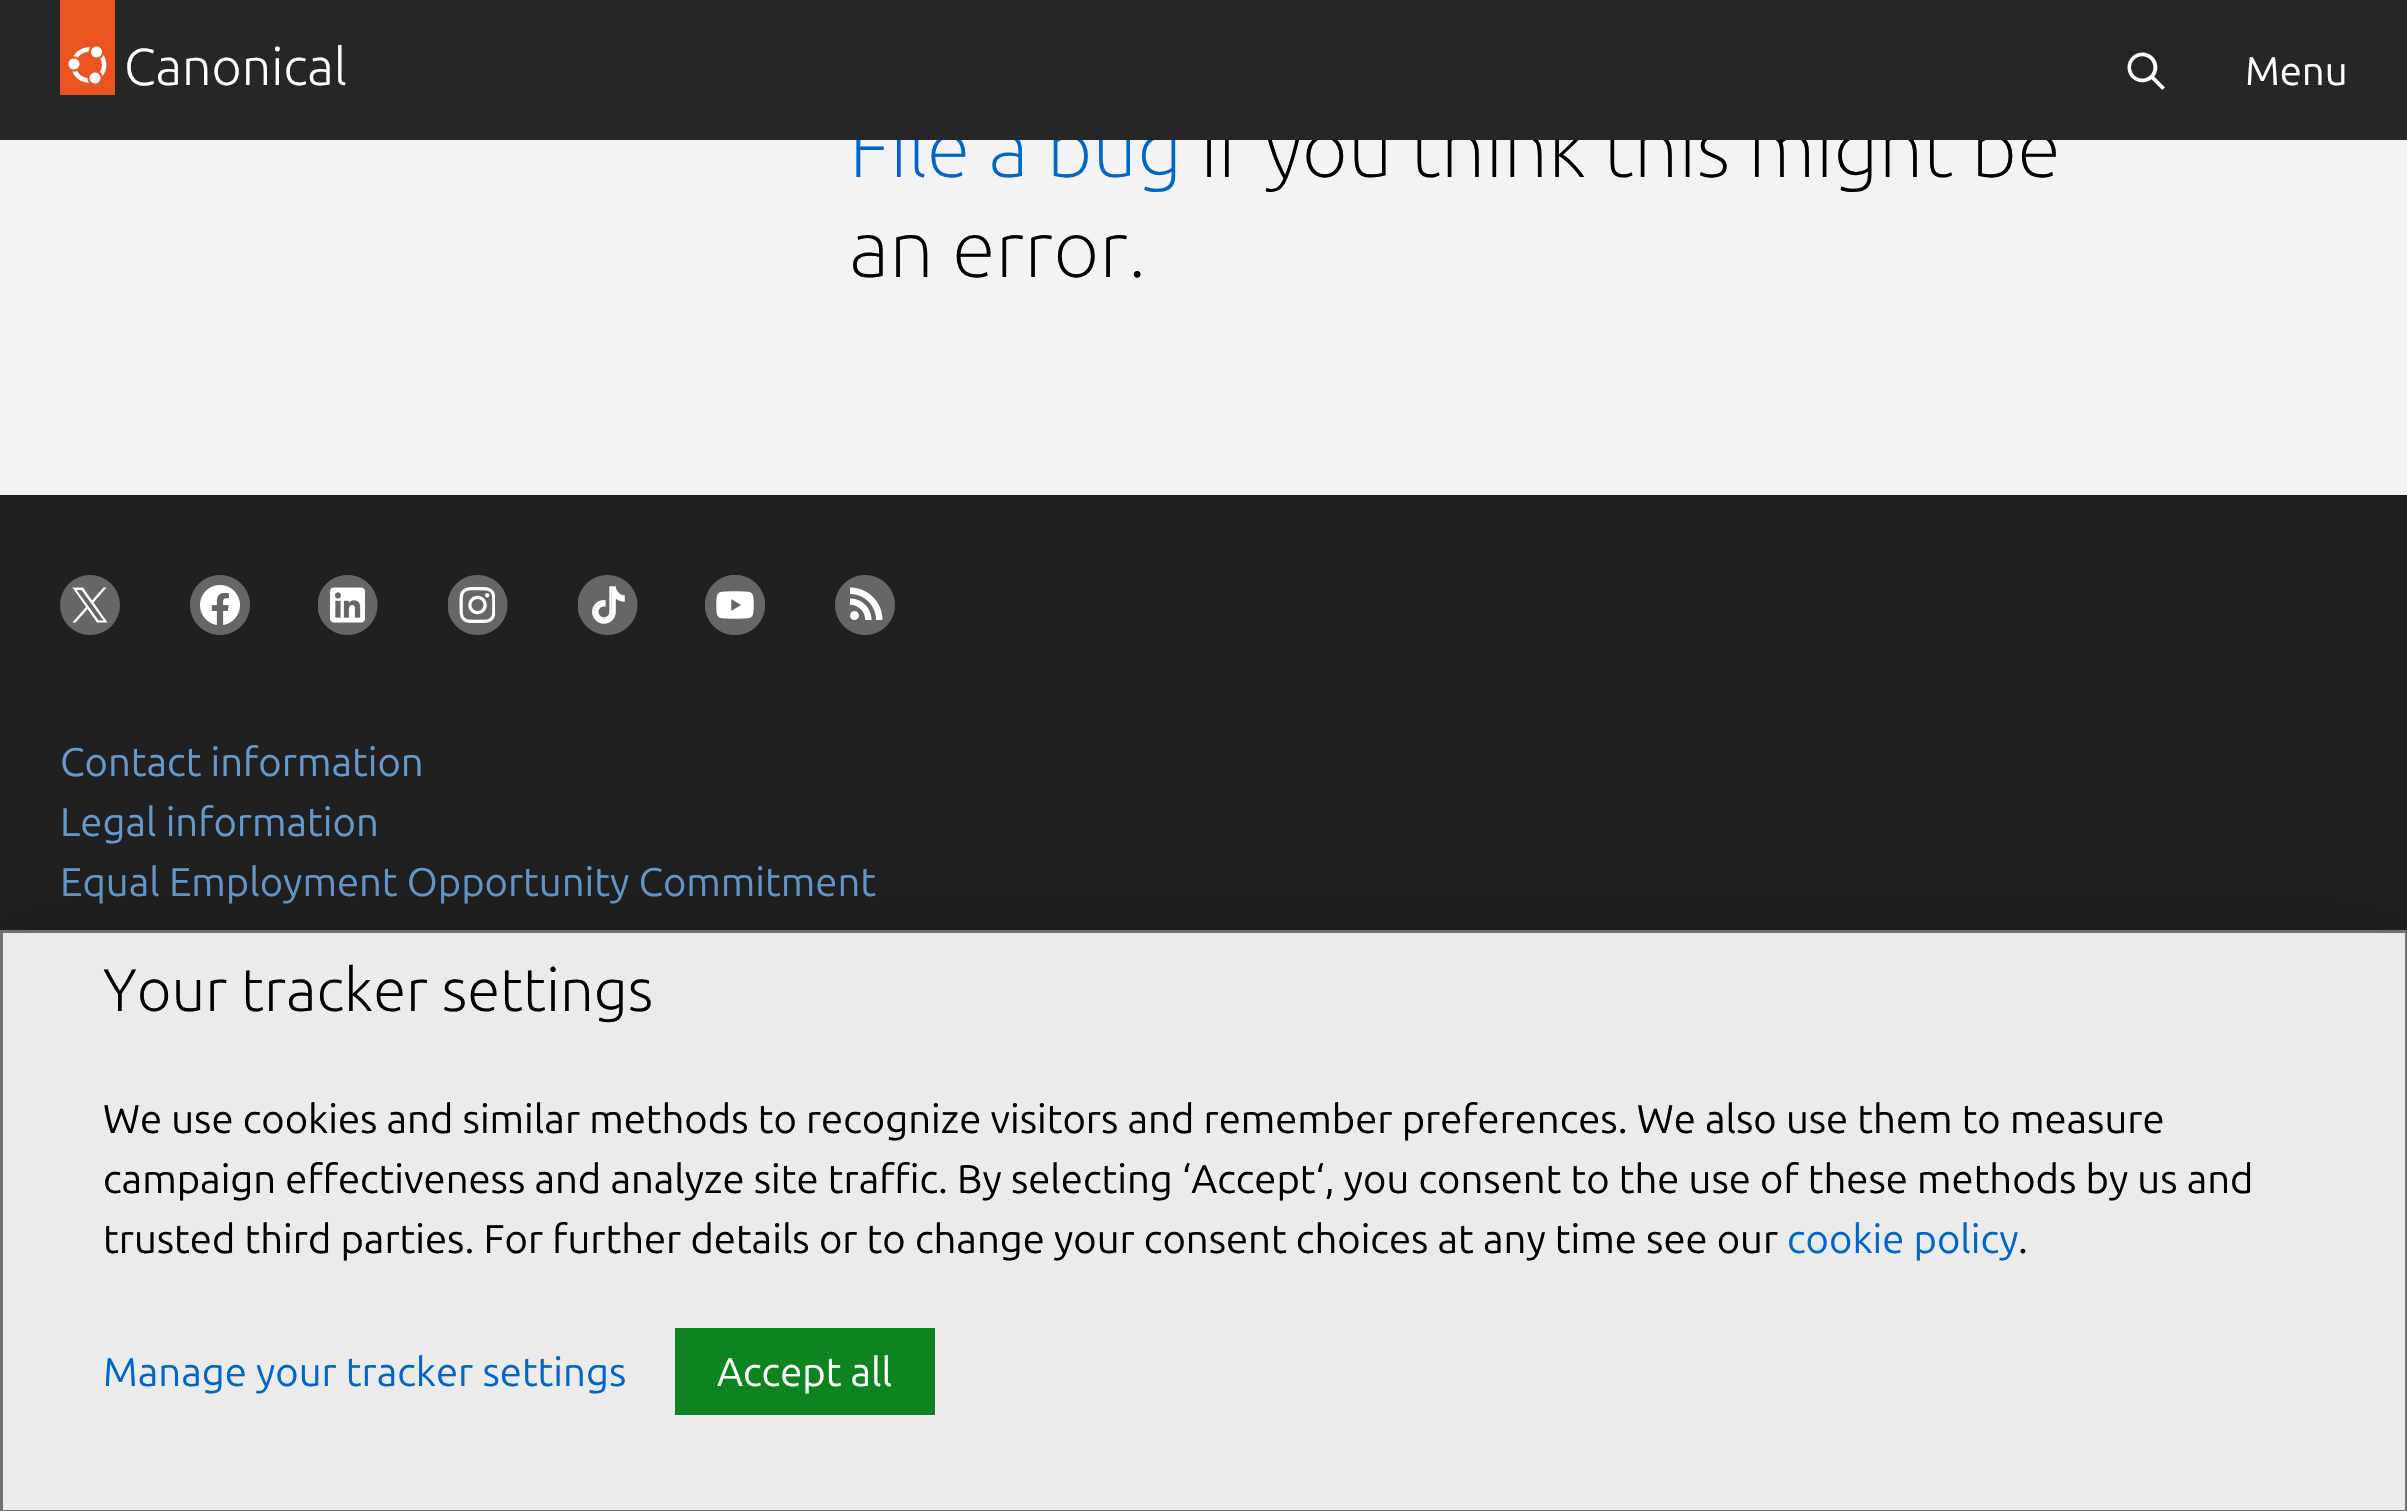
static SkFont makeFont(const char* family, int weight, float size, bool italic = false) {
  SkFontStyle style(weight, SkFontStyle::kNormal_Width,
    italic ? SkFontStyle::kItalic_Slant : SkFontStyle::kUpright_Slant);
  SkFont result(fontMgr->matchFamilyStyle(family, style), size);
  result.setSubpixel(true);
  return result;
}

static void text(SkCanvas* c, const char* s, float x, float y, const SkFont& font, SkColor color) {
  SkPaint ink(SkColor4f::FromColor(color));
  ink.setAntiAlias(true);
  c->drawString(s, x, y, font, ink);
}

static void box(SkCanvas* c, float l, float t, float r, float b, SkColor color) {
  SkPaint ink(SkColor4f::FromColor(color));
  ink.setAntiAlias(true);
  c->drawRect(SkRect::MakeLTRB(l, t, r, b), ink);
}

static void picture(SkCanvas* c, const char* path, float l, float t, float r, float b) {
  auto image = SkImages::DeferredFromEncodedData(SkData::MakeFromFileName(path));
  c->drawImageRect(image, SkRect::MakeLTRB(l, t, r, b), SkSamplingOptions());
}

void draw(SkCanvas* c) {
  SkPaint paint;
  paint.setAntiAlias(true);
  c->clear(0xfff3f3f3);
  SkFont face1 = makeFont("Ubuntu", 200, 80);
  text(c, "File a bug", 849, 177, face1, 0xff0066cc);
  text(c, "if you think this might be", 1200, 177, face1, 0xff000000);
  box(c, 0, 0, 2407, 140, 0xff262626);
  box(c, 60, 0, 115, 95, 0xffe95420);
  picture(c, "img_01.png", 68, 46, 107, 84);
  SkFont face2 = makeFont("Ubuntu", 300, 52);
  text(c, "Canonical", 124, 85, face2, 0xffffffff);
  picture(c, "img_02.png", 2127, 52, 2165, 90);
  SkFont face3 = makeFont("Ubuntu", 400, 40);
  text(c, "Menu", 2245, 85, face3, 0xffffffff);
  text(c, "an error.", 849, 277, face1, 0xff000000);
  box(c, 0, 495, 2407, 930, 0xff202020);
  paint.setColor(0xff666666);
  c->drawCircle(90, 605, 30, paint);
  paint.setColor(0xffffffff);
  c->drawPath(SkPathBuilder().moveTo(93.5f, 602.5f).lineTo(106.5f, 587.5f).lineTo(103.5f, 587.5f).lineTo(92, 600.5f).lineTo(83, 587.5f).lineTo(72.5f, 587.5f).lineTo(86, 607).lineTo(72.5f, 622.5f).lineTo(75.5f, 622.5f).lineTo(87.5f, 609).lineTo(97, 622.5f).lineTo(107.5f, 622.5f).close().moveTo(89, 607).lineTo(76.5f, 590).lineTo(81.5f, 590).lineTo(103.5f, 620.5f).lineTo(98.5f, 620.5f).close().detach(), paint);
  picture(c, "img_03.png", 190, 575, 250, 635);
  picture(c, "img_04.png", 318, 575, 378, 635);
  picture(c, "img_05.png", 448, 575, 508, 635);
  picture(c, "img_06.png", 578, 575, 638, 635);
  picture(c, "img_07.png", 705, 575, 765, 635);
  picture(c, "img_08.png", 835, 575, 895, 635);
  text(c, "Contact information", 60, 776, face3, 0xff6699cc);
  text(c, "Legal information", 60, 836, face3, 0xff6699cc);
  text(c, "Equal Employment Opportunity Commitment", 60, 896, face3, 0xff6699cc);
  paint.setColor(0x33000000);
  paint.setMaskFilter(SkMaskFilter::MakeBlur(kNormal_SkBlurStyle, 40));
  c->drawRect(SkRect::MakeLTRB(0, 930, 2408, 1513), paint);
  paint.setMaskFilter(nullptr);
  paint.setColor(0xffebebeb);
  c->drawRect(SkRect::MakeLTRB(1.5f, 931.5f, 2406.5f, 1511.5f), paint);
  paint.setStyle(SkPaint::kStroke_Style);
  paint.setStrokeWidth(3);
  paint.setColor(0xff707070);
  c->drawRect(SkRect::MakeLTRB(1.5f, 931.5f, 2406.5f, 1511.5f), paint);
  SkFont face4 = makeFont("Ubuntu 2", 300, 60);
  text(c, "Your tracker settings", 103, 1011, face4, 0xff000000);
  text(c, "We use cookies and similar methods to recognize visitors and remember preferences. We also use them to measure", 103, 1133, face3, 0xff000000);
  text(c, "campaign effectiveness and analyze site traffic. By selecting ‘Accept‘, you consent to the use of these methods by us and", 103, 1193, face3, 0xff000000);
  text(c, "trusted third parties. For further details or to change your consent choices at any time see our", 103, 1253, face3, 0xff000000);
  text(c, "cookie policy", 1787, 1253, face3, 0xff0066cc);
  text(c, ".", 2018, 1253, face3, 0xff000000);
  text(c, "Manage your tracker settings", 103, 1386, face3, 0xff0066cc);
  box(c, 675, 1328, 935, 1415, 0xff0e8420);
  text(c, "Accept all", 717, 1386, face3, 0xffffffff);
}
